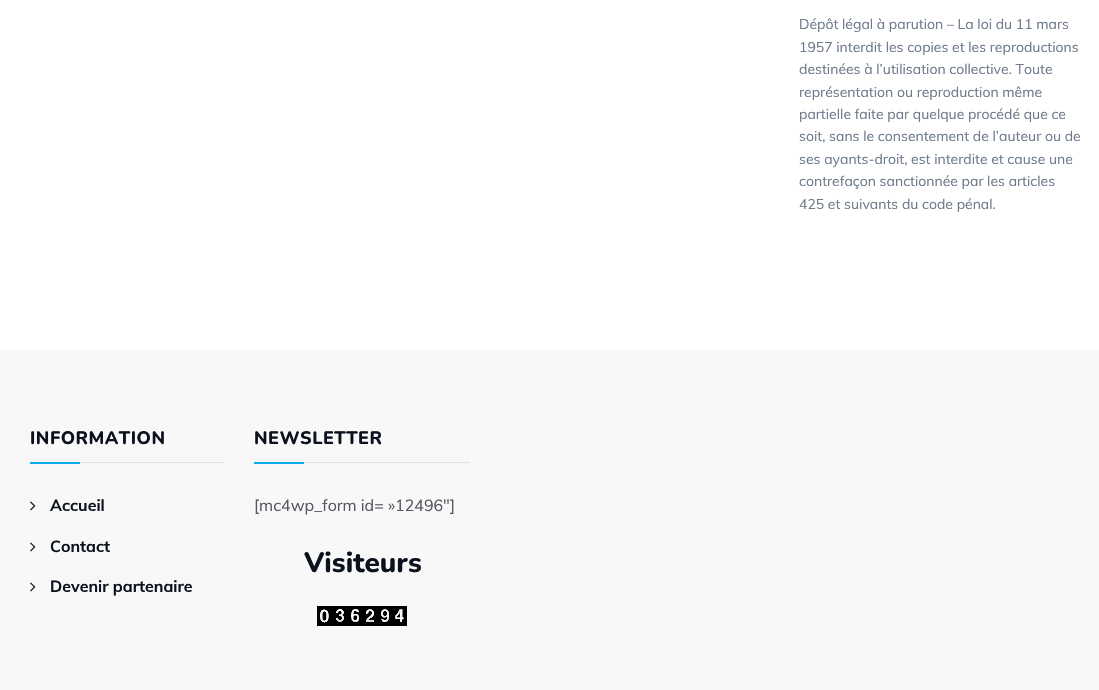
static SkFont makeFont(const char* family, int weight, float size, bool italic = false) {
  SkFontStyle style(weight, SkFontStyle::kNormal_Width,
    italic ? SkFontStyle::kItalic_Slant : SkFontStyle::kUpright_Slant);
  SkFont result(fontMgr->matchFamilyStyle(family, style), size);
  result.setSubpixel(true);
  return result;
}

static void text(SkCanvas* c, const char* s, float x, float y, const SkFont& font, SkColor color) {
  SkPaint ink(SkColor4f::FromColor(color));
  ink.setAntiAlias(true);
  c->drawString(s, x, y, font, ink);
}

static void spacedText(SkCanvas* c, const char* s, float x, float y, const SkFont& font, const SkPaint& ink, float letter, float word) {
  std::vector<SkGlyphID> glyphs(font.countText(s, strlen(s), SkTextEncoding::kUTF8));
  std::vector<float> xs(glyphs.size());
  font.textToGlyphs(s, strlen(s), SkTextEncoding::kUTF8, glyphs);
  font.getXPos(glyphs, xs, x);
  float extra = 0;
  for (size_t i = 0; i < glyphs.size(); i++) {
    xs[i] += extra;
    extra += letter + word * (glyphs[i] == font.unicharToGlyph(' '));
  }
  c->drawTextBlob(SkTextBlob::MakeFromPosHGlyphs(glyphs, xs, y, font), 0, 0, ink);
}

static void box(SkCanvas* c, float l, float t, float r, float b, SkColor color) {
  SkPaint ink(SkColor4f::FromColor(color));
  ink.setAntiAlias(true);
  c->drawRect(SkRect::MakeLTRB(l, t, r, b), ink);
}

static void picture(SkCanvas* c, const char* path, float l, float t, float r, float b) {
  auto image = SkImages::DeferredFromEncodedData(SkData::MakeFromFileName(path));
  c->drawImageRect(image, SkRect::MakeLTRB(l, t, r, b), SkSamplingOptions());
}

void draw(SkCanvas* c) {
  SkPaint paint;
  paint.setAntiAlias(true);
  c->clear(0xffffffff);
  SkFont face1 = makeFont("Muli", 400, 14);
  text(c, "Dépôt légal à parution – La loi du 11 mars", 799, 29, face1, 0xff6d7a8c);
  text(c, "1957 interdit les copies et les reproductions", 799, 52, face1, 0xff6d7a8c);
  text(c, "destinées à l’utilisation collective. Toute", 799, 74, face1, 0xff6d7a8c);
  text(c, "représentation ou reproduction même", 799, 97, face1, 0xff6d7a8c);
  text(c, "partielle faite par quelque procédé que ce", 799, 119, face1, 0xff6d7a8c);
  text(c, "soit, sans le consentement de l’auteur ou de", 799, 141, face1, 0xff6d7a8c);
  text(c, "ses ayants-droit, est interdite et cause une", 799, 164, face1, 0xff6d7a8c);
  text(c, "contrefaçon sanctionnée par les articles", 799, 186, face1, 0xff6d7a8c);
  text(c, "425 et suivants du code pénal.", 799, 209, face1, 0xff6d7a8c);
  box(c, 0, 350, 1099, 690, 0xfff8f8f9);
  box(c, 80, 462, 224, 463, 0xffdfdfe0);
  SkFont face2 = makeFont("Nunito", 800, 18);
  paint.setColor(0xff0c121d);
  spacedText(c, "INFORMATION", 30, 444, face2, paint, 0.5f, 0);
  box(c, 30, 462, 80, 464, 0xff0aadeb);
  picture(c, "img_01.png", 30, 501, 36, 511);
  SkFont face3 = makeFont("Muli", 700, 16);
  text(c, "Accueil", 50, 511, face3, 0xff0c121d);
  picture(c, "img_01.png", 30, 542, 36, 552);
  text(c, "Contact", 50, 552, face3, 0xff0c121d);
  picture(c, "img_01.png", 30, 582, 36, 592);
  text(c, "Devenir partenaire", 50, 592, face3, 0xff0c121d);
  box(c, 304, 462, 470, 463, 0xffdfdfe0);
  spacedText(c, "NEWSLETTER", 254, 444, face2, paint, 0.5f, 0);
  box(c, 254, 462, 304, 464, 0xff0aadeb);
  SkFont face4 = makeFont("Muli", 400, 16);
  text(c, "[mc4wp_form id= »12496″]", 254, 511, face4, 0xff53575f);
  SkFont face5 = makeFont("Nunito", 800, 28);
  text(c, "Visiteurs", 304, 572, face5, 0xff0c121d);
  picture(c, "img_02.png", 317, 606, 332, 626);
  picture(c, "img_03.png", 332, 606, 347, 626);
  picture(c, "img_04.png", 347, 606, 362, 626);
  picture(c, "img_05.png", 362, 606, 377, 626);
  picture(c, "img_06.png", 377, 606, 392, 626);
  picture(c, "img_07.png", 392, 606, 407, 626);
}
